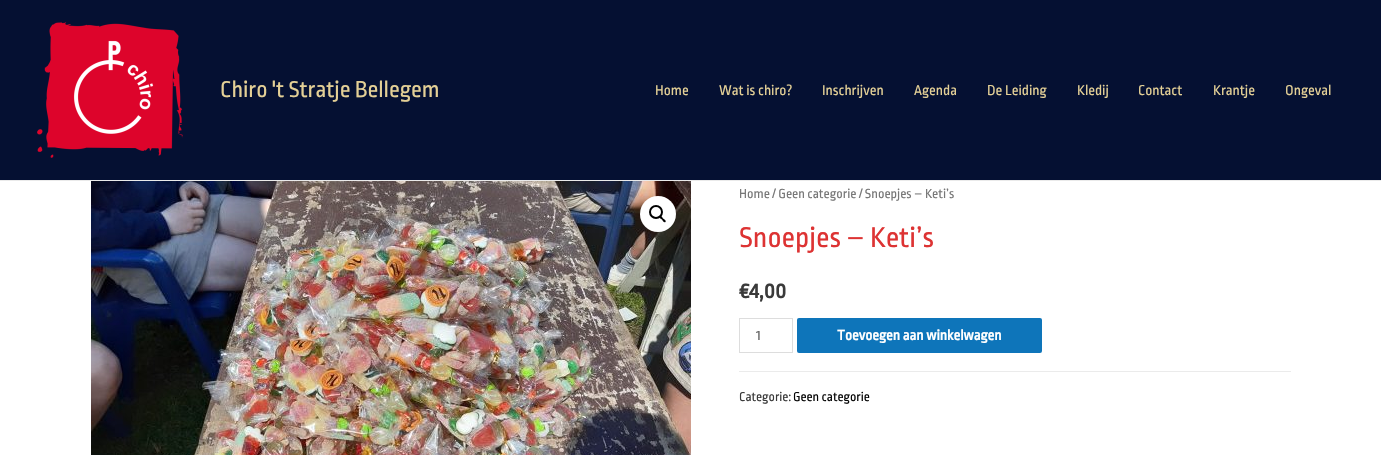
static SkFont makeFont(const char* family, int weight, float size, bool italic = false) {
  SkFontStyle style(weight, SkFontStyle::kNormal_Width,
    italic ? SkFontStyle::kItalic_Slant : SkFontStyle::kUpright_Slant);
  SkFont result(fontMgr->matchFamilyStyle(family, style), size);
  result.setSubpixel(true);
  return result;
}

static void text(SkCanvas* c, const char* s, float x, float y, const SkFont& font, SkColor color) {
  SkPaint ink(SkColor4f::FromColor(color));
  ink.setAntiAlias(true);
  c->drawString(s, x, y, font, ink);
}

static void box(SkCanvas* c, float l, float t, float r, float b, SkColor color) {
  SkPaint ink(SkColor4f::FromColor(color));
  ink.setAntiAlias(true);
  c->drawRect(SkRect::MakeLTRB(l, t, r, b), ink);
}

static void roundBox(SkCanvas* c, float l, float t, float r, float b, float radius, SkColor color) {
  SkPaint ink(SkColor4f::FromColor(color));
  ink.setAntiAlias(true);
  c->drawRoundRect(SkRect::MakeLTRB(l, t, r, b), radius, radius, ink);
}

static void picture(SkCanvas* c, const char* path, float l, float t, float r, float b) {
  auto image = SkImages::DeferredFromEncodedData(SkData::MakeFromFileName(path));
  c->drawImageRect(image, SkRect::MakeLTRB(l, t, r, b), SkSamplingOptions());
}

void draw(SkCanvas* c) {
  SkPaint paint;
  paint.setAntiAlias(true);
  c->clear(0xffffffff);
  box(c, 0, 0, 1381, 180, 0xff051032);
  box(c, 0, 180, 1381, 181, 0xffeaeaea);
  picture(c, "img_01.png", 37, 22, 183, 158);
  SkFont face1 = makeFont("Ropa Sans", 400, 24);
  text(c, "Chiro 't Stratje Bellegem", 220, 97, face1, 0xffe4d096);
  SkFont face2 = makeFont("Ropa Sans", 400, 15);
  text(c, "Home", 655, 95, face2, 0xffe4d096);
  text(c, "Wat is chiro?", 719, 95, face2, 0xffe4d096);
  text(c, "Inschrijven", 822, 95, face2, 0xffe4d096);
  text(c, "Agenda", 914, 95, face2, 0xffe4d096);
  text(c, "De Leiding", 987, 95, face2, 0xffe4d096);
  text(c, "Kledij", 1077, 95, face2, 0xffe4d096);
  text(c, "Contact", 1138, 95, face2, 0xffe4d096);
  text(c, "Krantje", 1213, 95, face2, 0xffe4d096);
  text(c, "Ongeval", 1285, 95, face2, 0xffe4d096);
  picture(c, "img_02.png", 91, 181, 691, 455);
  paint.setColor(0xffffffff);
  c->drawCircle(658, 214, 18, paint);
  paint.setStyle(SkPaint::kStroke_Style);
  paint.setStrokeWidth(2);
  paint.setColor(0xff000000);
  c->drawCircle(656, 212, 6, paint);
  paint.setStyle(SkPaint::kFill_Style);
  c->drawPath(SkPathBuilder().moveTo(659.5f, 216).cubicTo(661, 215, 662.5f, 217.5f, 663, 218.5f).cubicTo(664, 219, 666.5f, 220.5f, 665.5f, 222).cubicTo(664, 223, 662.5f, 220.5f, 662, 219.5f).cubicTo(661, 219, 658.5f, 217.5f, 659.5f, 216).close().detach(), paint);
  SkFont face3 = makeFont("Ropa Sans", 400, 13.75f);
  text(c, "Home / Geen categorie / Snoepjes – Keti’s", 739, 198, face3, 0xff777777);
  SkFont face4 = makeFont("Ropa Sans", 400, 30);
  text(c, "Snoepjes – Keti’s", 739, 247, face4, 0xffdd3333);
  SkFont face5 = makeFont("Ropa Sans", 700, 22.5f);
  text(c, "€4,00", 739, 298, face5, 0xff3a3a3a);
  paint.setStyle(SkPaint::kStroke_Style);
  paint.setStrokeWidth(1);
  paint.setColor(0xffdddddd);
  c->drawRect(SkRect::MakeLTRB(739.5f, 318.5f, 792.5f, 352.5f), paint);
  text(c, "1", 756, 340, face2, 0xff666666);
  roundBox(c, 797, 318, 1042, 353, 2, 0xff0e75ba);
  SkFont face6 = makeFont("Ropa Sans", 700, 15);
  text(c, "Toevoegen aan winkelwagen", 837, 340, face6, 0xffffffff);
  box(c, 739, 371, 1291, 372, 0xffebebeb);
  SkFont face7 = makeFont("Ropa Sans", 400, 13.5f);
  text(c, "Categorie:", 739, 401, face7, 0xff3a3a3a);
  text(c, "Geen categorie", 793, 401, face7, 0xff050505);
}
